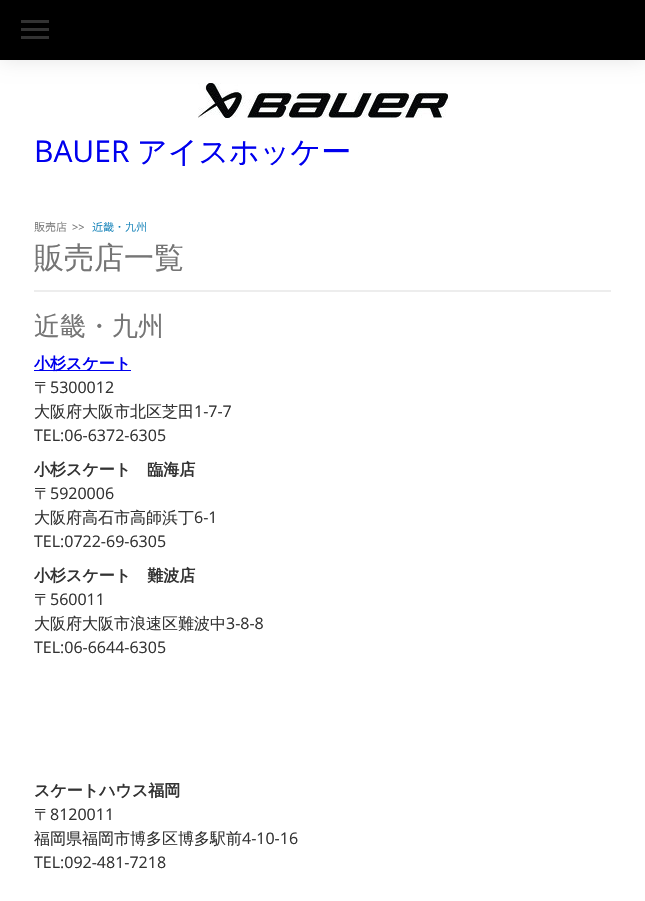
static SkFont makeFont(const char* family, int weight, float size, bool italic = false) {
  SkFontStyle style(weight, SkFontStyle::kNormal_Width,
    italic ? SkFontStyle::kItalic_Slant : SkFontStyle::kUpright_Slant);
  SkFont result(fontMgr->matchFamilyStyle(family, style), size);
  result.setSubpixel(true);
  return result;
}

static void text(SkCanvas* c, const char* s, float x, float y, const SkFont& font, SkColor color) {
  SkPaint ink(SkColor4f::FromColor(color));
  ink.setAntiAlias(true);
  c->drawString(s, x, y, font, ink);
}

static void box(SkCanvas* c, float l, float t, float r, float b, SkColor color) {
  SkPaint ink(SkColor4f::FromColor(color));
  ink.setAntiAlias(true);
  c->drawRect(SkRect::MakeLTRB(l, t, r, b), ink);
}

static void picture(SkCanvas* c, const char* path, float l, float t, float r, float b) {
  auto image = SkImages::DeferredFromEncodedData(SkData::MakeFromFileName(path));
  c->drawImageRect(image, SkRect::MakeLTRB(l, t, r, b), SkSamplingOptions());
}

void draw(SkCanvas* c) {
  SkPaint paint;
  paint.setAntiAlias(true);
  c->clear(0xffffffff);
  picture(c, "img_01.png", 198, 83, 448, 118);
  paint.setColor(0x1a000000);
  paint.setMaskFilter(SkMaskFilter::MakeBlur(kNormal_SkBlurStyle, 10));
  c->drawRect(SkRect::MakeLTRB(0, 0, 645, 60), paint);
  paint.setMaskFilter(nullptr);
  box(c, 0, 0, 645, 60, 0xff000000);
  box(c, 21, 28, 49, 31, 0xff333333);
  box(c, 21, 20, 49, 23, 0xff333333);
  box(c, 21, 36, 49, 39, 0xff333333);
  SkFont face1 = makeFont("Open Sans", 400, 30);
  text(c, "BAUER", 34, 162, face1, 0xff0000ee);
  SkFont face2 = makeFont("WenQuanYi Zen Hei", 500, 30);
  text(c, "アイスホッケー", 137, 162, face2, 0xff0000ee);
  SkFont face3 = makeFont("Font", 300, 11);
  text(c, "販売店", 34, 231, face3, 0xff757575);
  SkFont face4 = makeFont("Open Sans", 400, 11);
  text(c, ">>", 72, 231, face4, 0xff757575);
  text(c, "近畿・九州", 92, 231, face3, 0xff1382b9);
  text(c, "販売店一覧", 34, 268, face2, 0xff757575);
  box(c, 34, 290, 611, 292, 0xffededed);
  SkFont face5 = makeFont("WenQuanYi Zen Hei", 500, 26);
  text(c, "近畿・九州", 34, 335, face5, 0xff757575);
  box(c, 34, 370, 131, 371, 0xff0000ee);
  SkFont face6 = makeFont("WenQuanYi Zen Hei", 700, 16);
  text(c, "小杉スケート", 34, 369, face6, 0xff0000ee);
  SkFont face7 = makeFont("WenQuanYi Zen Hei", 500, 16);
  text(c, "〒", 34, 393, face7, 0xff333333);
  SkFont face8 = makeFont("Open Sans", 400, 16);
  text(c, "5300012", 50, 393, face8, 0xff333333);
  text(c, "大阪府大阪市北区芝田", 34, 417, face7, 0xff333333);
  text(c, "1-7-7", 194, 417, face8, 0xff333333);
  text(c, "TEL:06-6372-6305", 34, 441, face8, 0xff333333);
  text(c, "小杉スケート　臨海店", 34, 475, face6, 0xff333333);
  text(c, "〒", 34, 499, face7, 0xff333333);
  text(c, "5920006", 50, 499, face8, 0xff333333);
  text(c, "大阪府高石市高師浜丁", 34, 523, face7, 0xff333333);
  text(c, "6-1", 194, 523, face8, 0xff333333);
  text(c, "TEL:0722-69-6305", 34, 547, face8, 0xff333333);
  text(c, "小杉スケート　難波店", 34, 581, face6, 0xff333333);
  text(c, "〒", 34, 605, face7, 0xff333333);
  text(c, "560011", 50, 605, face8, 0xff333333);
  text(c, "大阪府大阪市浪速区難波中", 34, 629, face7, 0xff333333);
  text(c, "3-8-8", 226, 629, face8, 0xff333333);
  text(c, "TEL:06-6644-6305", 34, 653, face8, 0xff333333);
  text(c, "スケートハウス福岡", 34, 796, face6, 0xff333333);
  text(c, "〒", 34, 820, face7, 0xff333333);
  text(c, "8120011", 50, 820, face8, 0xff333333);
  text(c, "福岡県福岡市博多区博多駅前", 34, 844, face7, 0xff333333);
  text(c, "4-10-16", 242, 844, face8, 0xff333333);
  text(c, "TEL:092-481-7218", 34, 868, face8, 0xff333333);
}
